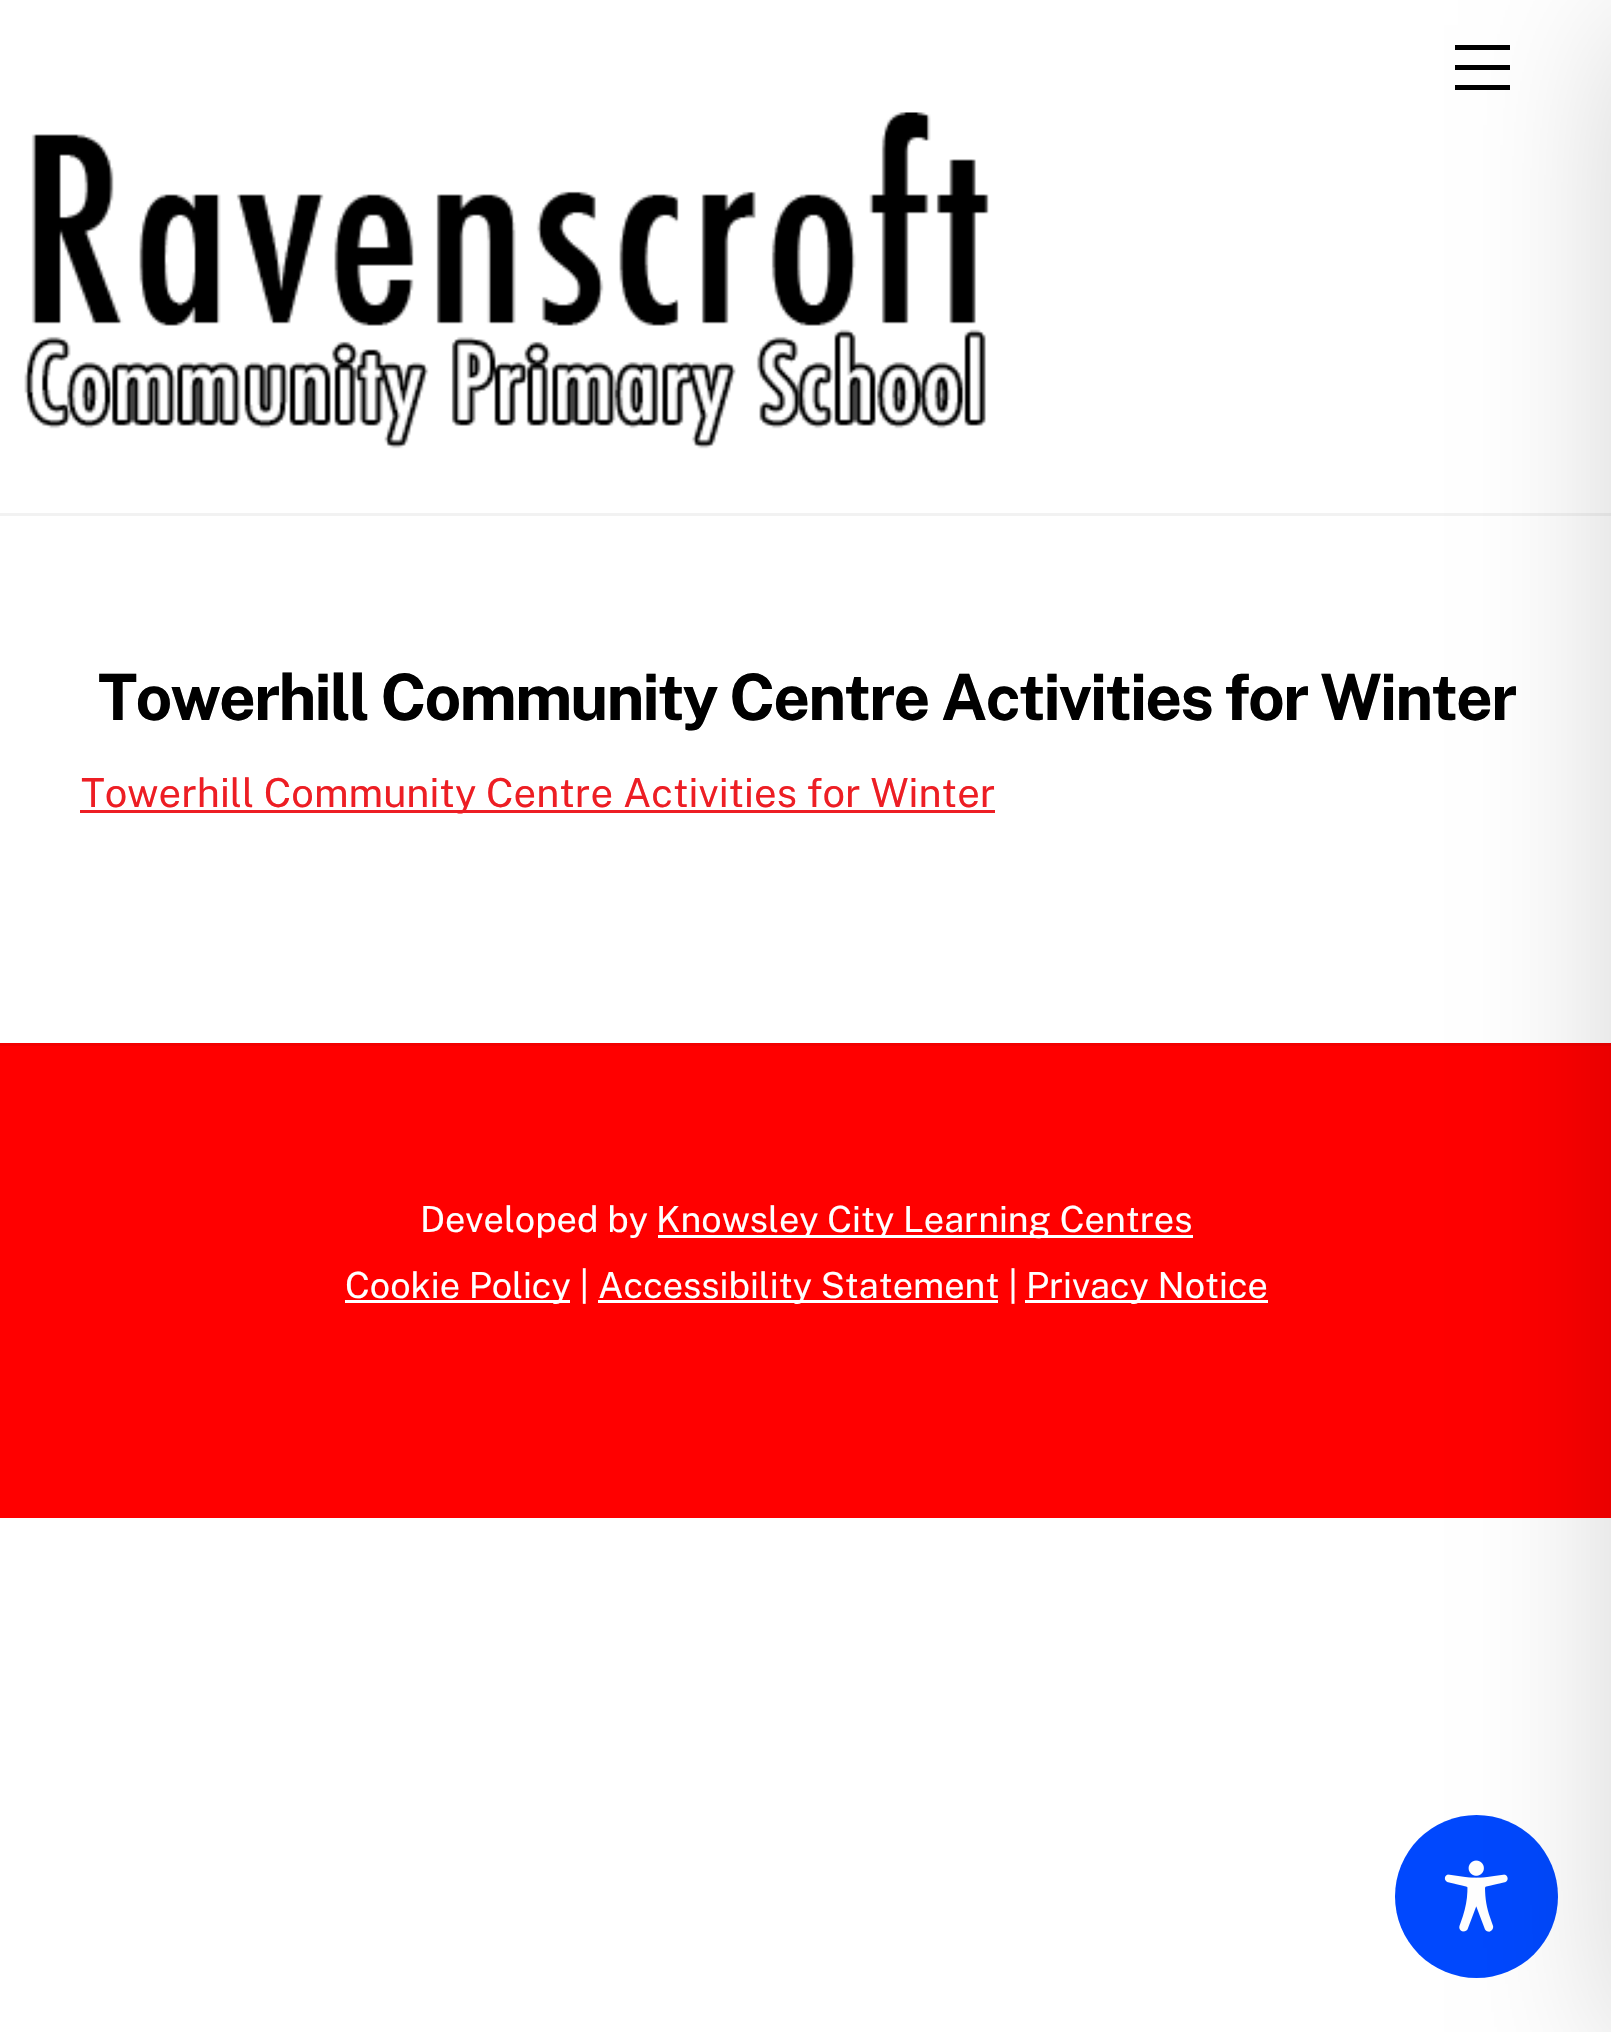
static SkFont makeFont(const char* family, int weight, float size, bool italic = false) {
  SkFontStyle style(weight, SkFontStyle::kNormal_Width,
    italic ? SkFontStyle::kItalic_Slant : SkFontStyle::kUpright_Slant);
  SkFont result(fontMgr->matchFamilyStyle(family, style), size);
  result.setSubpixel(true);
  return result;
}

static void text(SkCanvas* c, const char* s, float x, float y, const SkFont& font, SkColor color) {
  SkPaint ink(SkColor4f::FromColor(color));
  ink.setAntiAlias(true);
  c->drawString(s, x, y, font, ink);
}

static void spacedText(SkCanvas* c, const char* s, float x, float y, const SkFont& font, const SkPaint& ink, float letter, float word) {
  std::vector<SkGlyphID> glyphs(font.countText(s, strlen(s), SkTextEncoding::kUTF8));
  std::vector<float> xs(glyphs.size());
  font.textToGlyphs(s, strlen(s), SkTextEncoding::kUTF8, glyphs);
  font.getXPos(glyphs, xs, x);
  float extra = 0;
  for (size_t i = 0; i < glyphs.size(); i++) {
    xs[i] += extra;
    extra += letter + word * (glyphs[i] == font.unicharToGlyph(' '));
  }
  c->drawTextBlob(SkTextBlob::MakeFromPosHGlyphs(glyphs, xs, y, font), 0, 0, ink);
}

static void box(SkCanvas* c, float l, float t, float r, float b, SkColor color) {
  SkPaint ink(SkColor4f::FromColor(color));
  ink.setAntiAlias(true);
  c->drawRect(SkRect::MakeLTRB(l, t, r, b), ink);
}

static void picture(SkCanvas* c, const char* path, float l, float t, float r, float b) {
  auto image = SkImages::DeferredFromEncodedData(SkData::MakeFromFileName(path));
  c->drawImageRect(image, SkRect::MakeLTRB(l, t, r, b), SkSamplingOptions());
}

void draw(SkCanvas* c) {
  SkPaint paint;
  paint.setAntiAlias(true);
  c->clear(0xffffffff);
  box(c, 0, 513, 1611, 516, 0xfff2f2f2);
  box(c, 1455, 85, 1510, 90, 0xff000000);
  box(c, 1455, 45, 1510, 50, 0xff000000);
  box(c, 1455, 65, 1510, 70, 0xff000000);
  box(c, 0, 1046, 1611, 1518, 0xffff0000);
  box(c, 0, 1043, 1611, 1046, 0xfff20000);
  paint.setColor(0xff0048fe);
  c->drawCircle(1476.5f, 1896.5f, 81.5f, paint);
  picture(c, "img_02.png", 1444, 1860, 1508, 1932);
  paint.setColor(0x33000000);
  paint.setMaskFilter(SkMaskFilter::MakeBlur(kNormal_SkBlurStyle, 75));
  c->drawRect(SkRect::MakeLTRB(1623, 25, 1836, 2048), paint);
  paint.setMaskFilter(nullptr);
  picture(c, "img_01.png", 24, 112, 989, 449);
  SkFont face1 = makeFont("Public Sans", 700, 64);
  paint.setColor(0xff000000);
  spacedText(c, "Towerhill Community Centre Activities for Winter", 98, 720, face1, paint, -1.9f, 0);
  box(c, 80, 810, 995, 813, 0xffed1e24);
  SkFont face2 = makeFont("Public Sans", 400, 40);
  text(c, "Towerhill Community Centre Activities for Winter", 81, 807, face2, 0xffed1e24);
  SkFont face3 = makeFont("Public Sans", 400, 36);
  text(c, "Developed by", 420, 1232, face3, 0xffffffff);
  box(c, 658, 1235, 1193, 1238, 0xffffffff);
  text(c, "Knowsley City Learning Centres", 656, 1232, face3, 0xffffffff);
  box(c, 345, 1300, 570, 1303, 0xffffffff);
  text(c, "Cookie Policy |", 345, 1298, face3, 0xffffffff);
  box(c, 598, 1300, 998, 1303, 0xffffffff);
  text(c, "Accessibility Statement |", 598, 1298, face3, 0xffffffff);
  box(c, 1025, 1300, 1268, 1303, 0xffffffff);
  text(c, "Privacy Notice", 1026, 1298, face3, 0xffffffff);
}
